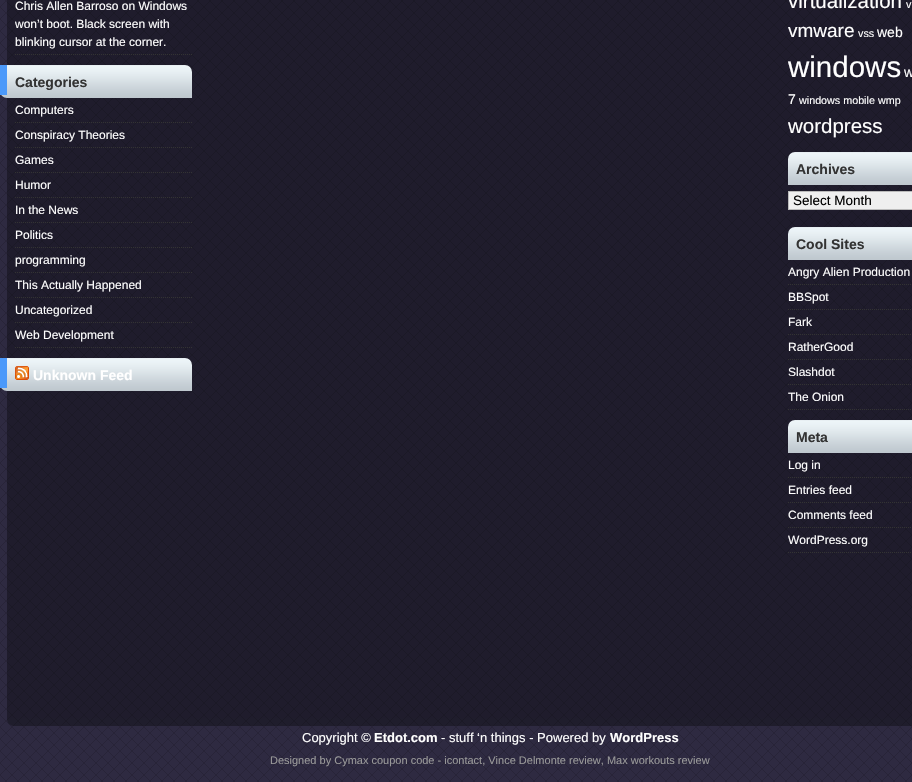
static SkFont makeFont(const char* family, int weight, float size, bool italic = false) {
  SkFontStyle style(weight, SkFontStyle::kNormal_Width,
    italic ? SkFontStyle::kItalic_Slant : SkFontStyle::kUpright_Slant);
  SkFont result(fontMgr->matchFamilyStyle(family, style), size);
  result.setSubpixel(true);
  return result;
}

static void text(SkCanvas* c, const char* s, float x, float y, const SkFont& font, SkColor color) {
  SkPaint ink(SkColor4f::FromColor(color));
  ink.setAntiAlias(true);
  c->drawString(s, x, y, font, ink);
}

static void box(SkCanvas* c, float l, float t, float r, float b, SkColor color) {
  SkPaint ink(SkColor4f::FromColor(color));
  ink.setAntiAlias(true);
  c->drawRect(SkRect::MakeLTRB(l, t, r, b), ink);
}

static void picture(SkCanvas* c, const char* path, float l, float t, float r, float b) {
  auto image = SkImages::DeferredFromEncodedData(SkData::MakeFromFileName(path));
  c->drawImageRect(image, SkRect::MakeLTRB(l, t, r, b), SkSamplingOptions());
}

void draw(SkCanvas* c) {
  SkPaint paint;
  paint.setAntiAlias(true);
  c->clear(0xffffffff);
  picture(c, "img_01.png", 0, 0, 912, 782);
  paint.setStyle(SkPaint::kStroke_Style);
  paint.setStrokeWidth(1);
  paint.setColor(0xff333333);
  paint.setPathEffect(SkDashPathEffect::Make({{1, 1}}, 0));
  c->drawPath(SkPathBuilder().moveTo(15, 54.5f).lineTo(192, 54.5f).detach(), paint);
  paint.setPathEffect(nullptr);
  SkFont face1 = makeFont("Liberation Sans", 400, 12);
  text(c, "Chris Allen Barroso on Windows", 15, 10, face1, 0xffffffff);
  text(c, "won’t boot. Black screen with", 15, 28, face1, 0xffffffff);
  text(c, "blinking cursor at the corner.", 15, 46, face1, 0xffffffff);
  picture(c, "img_02.png", 1, 65, 192, 98);
  box(c, 0, 65, 7, 95, 0xff4b99fa);
  SkFont face2 = makeFont("Liberation Sans", 700, 14);
  text(c, "Categories", 15, 87, face2, 0xff333333);
  paint.setPathEffect(SkDashPathEffect::Make({{1, 1}}, 0));
  c->drawPath(SkPathBuilder().moveTo(15, 122.5f).lineTo(192, 122.5f).detach(), paint);
  paint.setPathEffect(nullptr);
  text(c, "Computers", 15, 114, face1, 0xffffffff);
  paint.setPathEffect(SkDashPathEffect::Make({{1, 1}}, 0));
  c->drawPath(SkPathBuilder().moveTo(15, 147.5f).lineTo(192, 147.5f).detach(), paint);
  paint.setPathEffect(nullptr);
  text(c, "Conspiracy Theories", 15, 139, face1, 0xffffffff);
  paint.setPathEffect(SkDashPathEffect::Make({{1, 1}}, 0));
  c->drawPath(SkPathBuilder().moveTo(15, 172.5f).lineTo(192, 172.5f).detach(), paint);
  paint.setPathEffect(nullptr);
  text(c, "Games", 15, 164, face1, 0xffffffff);
  paint.setPathEffect(SkDashPathEffect::Make({{1, 1}}, 0));
  c->drawPath(SkPathBuilder().moveTo(15, 197.5f).lineTo(192, 197.5f).detach(), paint);
  paint.setPathEffect(nullptr);
  text(c, "Humor", 15, 189, face1, 0xffffffff);
  paint.setPathEffect(SkDashPathEffect::Make({{1, 1}}, 0));
  c->drawPath(SkPathBuilder().moveTo(15, 222.5f).lineTo(192, 222.5f).detach(), paint);
  paint.setPathEffect(nullptr);
  text(c, "In the News", 15, 214, face1, 0xffffffff);
  paint.setPathEffect(SkDashPathEffect::Make({{1, 1}}, 0));
  c->drawPath(SkPathBuilder().moveTo(15, 247.5f).lineTo(192, 247.5f).detach(), paint);
  paint.setPathEffect(nullptr);
  text(c, "Politics", 15, 239, face1, 0xffffffff);
  paint.setPathEffect(SkDashPathEffect::Make({{1, 1}}, 0));
  c->drawPath(SkPathBuilder().moveTo(15, 272.5f).lineTo(192, 272.5f).detach(), paint);
  paint.setPathEffect(nullptr);
  text(c, "programming", 15, 264, face1, 0xffffffff);
  paint.setPathEffect(SkDashPathEffect::Make({{1, 1}}, 0));
  c->drawPath(SkPathBuilder().moveTo(15, 297.5f).lineTo(192, 297.5f).detach(), paint);
  paint.setPathEffect(nullptr);
  text(c, "This Actually Happened", 15, 289, face1, 0xffffffff);
  paint.setPathEffect(SkDashPathEffect::Make({{1, 1}}, 0));
  c->drawPath(SkPathBuilder().moveTo(15, 322.5f).lineTo(192, 322.5f).detach(), paint);
  paint.setPathEffect(nullptr);
  text(c, "Uncategorized", 15, 314, face1, 0xffffffff);
  paint.setPathEffect(SkDashPathEffect::Make({{1, 1}}, 0));
  c->drawPath(SkPathBuilder().moveTo(15, 347.5f).lineTo(192, 347.5f).detach(), paint);
  paint.setPathEffect(nullptr);
  text(c, "Web Development", 15, 339, face1, 0xffffffff);
  picture(c, "img_03.png", 1, 358, 192, 391);
  box(c, 0, 358, 7, 388, 0xff4b99fa);
  picture(c, "img_04.png", 15, 366, 29, 380);
  text(c, "Unknown Feed", 33, 380, face2, 0xffffffff);
  SkFont face3 = makeFont("Liberation Sans", 400, 20.5f);
  text(c, "virtualization", 788, 8, face3, 0xffffffff);
  SkFont face4 = makeFont("Liberation Sans", 400, 10.75f);
  text(c, "v", 906, 8, face4, 0xffffffff);
  SkFont face5 = makeFont("Liberation Sans", 400, 19);
  text(c, "vmware", 788, 37, face5, 0xffffffff);
  text(c, "vss", 858, 37, face4, 0xffffffff);
  SkFont face6 = makeFont("Liberation Sans", 400, 14);
  text(c, "web", 877, 37, face6, 0xffffffff);
  SkFont face7 = makeFont("Liberation Sans", 400, 29.5f);
  text(c, "windows", 788, 77, face7, 0xffffffff);
  text(c, "w", 904, 77, face6, 0xffffffff);
  text(c, "7", 788, 104, face6, 0xffffffff);
  text(c, "windows mobile", 799, 104, face4, 0xffffffff);
  text(c, "wmp", 878, 104, face4, 0xffffffff);
  text(c, "wordpress", 788, 133, face3, 0xffffffff);
  picture(c, "img_05.png", 788, 152, 912, 185);
  text(c, "Archives", 796, 174, face2, 0xff333333);
  paint.setStyle(SkPaint::kFill_Style);
  paint.setColor(0xffefefef);
  c->drawRect(SkRect::MakeLTRB(788.5f, 191.5f, 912.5f, 209.5f), paint);
  paint.setStyle(SkPaint::kStroke_Style);
  paint.setColor(0xffbbbbbb);
  c->drawRect(SkRect::MakeLTRB(788.5f, 191.5f, 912.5f, 209.5f), paint);
  SkFont face8 = makeFont("Liberation Sans", 400, 13.5f);
  text(c, "Select Month", 793, 205, face8, 0xff000000);
  picture(c, "img_06.png", 788, 227, 912, 260);
  text(c, "Cool Sites", 796, 249, face2, 0xff333333);
  paint.setColor(0xff333333);
  paint.setPathEffect(SkDashPathEffect::Make({{1, 1}}, 0));
  c->drawPath(SkPathBuilder().moveTo(788, 284.5f).lineTo(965, 284.5f).detach(), paint);
  paint.setPathEffect(nullptr);
  text(c, "Angry Alien Production", 788, 276, face1, 0xffffffff);
  paint.setPathEffect(SkDashPathEffect::Make({{1, 1}}, 0));
  c->drawPath(SkPathBuilder().moveTo(788, 309.5f).lineTo(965, 309.5f).detach(), paint);
  paint.setPathEffect(nullptr);
  text(c, "BBSpot", 788, 301, face1, 0xffffffff);
  paint.setPathEffect(SkDashPathEffect::Make({{1, 1}}, 0));
  c->drawPath(SkPathBuilder().moveTo(788, 334.5f).lineTo(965, 334.5f).detach(), paint);
  paint.setPathEffect(nullptr);
  text(c, "Fark", 788, 326, face1, 0xffffffff);
  paint.setPathEffect(SkDashPathEffect::Make({{1, 1}}, 0));
  c->drawPath(SkPathBuilder().moveTo(788, 359.5f).lineTo(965, 359.5f).detach(), paint);
  paint.setPathEffect(nullptr);
  text(c, "RatherGood", 788, 351, face1, 0xffffffff);
  paint.setPathEffect(SkDashPathEffect::Make({{1, 1}}, 0));
  c->drawPath(SkPathBuilder().moveTo(788, 384.5f).lineTo(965, 384.5f).detach(), paint);
  paint.setPathEffect(nullptr);
  text(c, "Slashdot", 788, 376, face1, 0xffffffff);
  paint.setPathEffect(SkDashPathEffect::Make({{1, 1}}, 0));
  c->drawPath(SkPathBuilder().moveTo(788, 409.5f).lineTo(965, 409.5f).detach(), paint);
  paint.setPathEffect(nullptr);
  text(c, "The Onion", 788, 401, face1, 0xffffffff);
  picture(c, "img_07.png", 788, 420, 912, 453);
  text(c, "Meta", 796, 442, face2, 0xff333333);
  paint.setPathEffect(SkDashPathEffect::Make({{1, 1}}, 0));
  c->drawPath(SkPathBuilder().moveTo(788, 477.5f).lineTo(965, 477.5f).detach(), paint);
  paint.setPathEffect(nullptr);
  text(c, "Log in", 788, 469, face1, 0xffffffff);
  paint.setPathEffect(SkDashPathEffect::Make({{1, 1}}, 0));
  c->drawPath(SkPathBuilder().moveTo(788, 502.5f).lineTo(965, 502.5f).detach(), paint);
  paint.setPathEffect(nullptr);
  text(c, "Entries feed", 788, 494, face1, 0xffffffff);
  paint.setPathEffect(SkDashPathEffect::Make({{1, 1}}, 0));
  c->drawPath(SkPathBuilder().moveTo(788, 527.5f).lineTo(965, 527.5f).detach(), paint);
  paint.setPathEffect(nullptr);
  text(c, "Comments feed", 788, 519, face1, 0xffffffff);
  paint.setPathEffect(SkDashPathEffect::Make({{1, 1}}, 0));
  c->drawPath(SkPathBuilder().moveTo(788, 552.5f).lineTo(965, 552.5f).detach(), paint);
  paint.setPathEffect(nullptr);
  text(c, "WordPress.org", 788, 544, face1, 0xffffffff);
  picture(c, "img_08.png", 7, 718, 912, 726);
  SkFont face9 = makeFont("Liberation Sans", 400, 13);
  text(c, "Copyright ©", 302, 742, face9, 0xffffffff);
  SkFont face10 = makeFont("Liberation Sans", 700, 13);
  text(c, "Etdot.com", 374, 742, face10, 0xffffffff);
  text(c, "- stuff ‘n things - Powered by", 441, 742, face9, 0xffffffff);
  text(c, "WordPress", 610, 742, face10, 0xffffffff);
  SkFont face11 = makeFont("Liberation Sans", 400, 11);
  text(c, "Designed by Cymax coupon code - icontact, Vince Delmonte review, Max workouts review", 270, 764, face11, 0xff999999);
}
